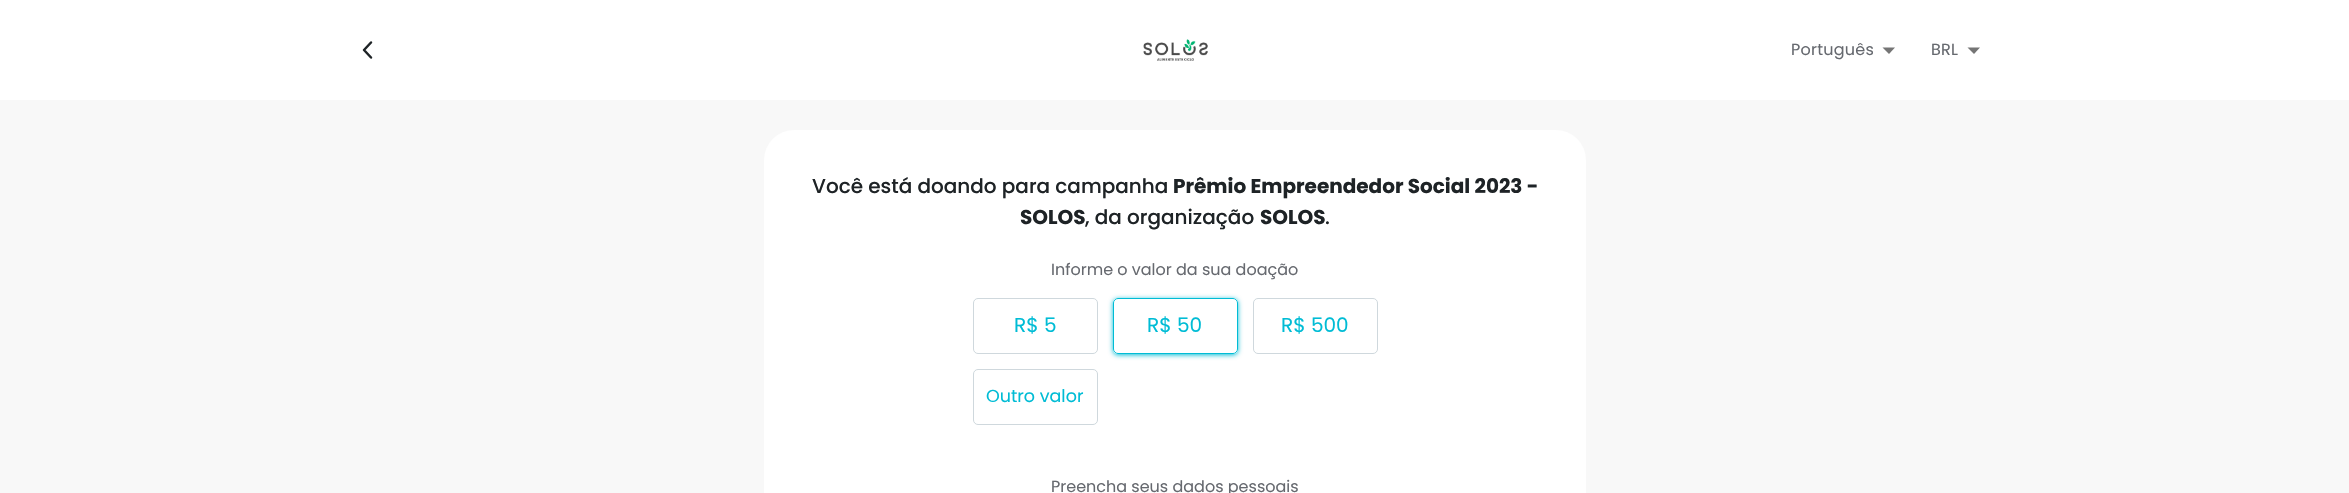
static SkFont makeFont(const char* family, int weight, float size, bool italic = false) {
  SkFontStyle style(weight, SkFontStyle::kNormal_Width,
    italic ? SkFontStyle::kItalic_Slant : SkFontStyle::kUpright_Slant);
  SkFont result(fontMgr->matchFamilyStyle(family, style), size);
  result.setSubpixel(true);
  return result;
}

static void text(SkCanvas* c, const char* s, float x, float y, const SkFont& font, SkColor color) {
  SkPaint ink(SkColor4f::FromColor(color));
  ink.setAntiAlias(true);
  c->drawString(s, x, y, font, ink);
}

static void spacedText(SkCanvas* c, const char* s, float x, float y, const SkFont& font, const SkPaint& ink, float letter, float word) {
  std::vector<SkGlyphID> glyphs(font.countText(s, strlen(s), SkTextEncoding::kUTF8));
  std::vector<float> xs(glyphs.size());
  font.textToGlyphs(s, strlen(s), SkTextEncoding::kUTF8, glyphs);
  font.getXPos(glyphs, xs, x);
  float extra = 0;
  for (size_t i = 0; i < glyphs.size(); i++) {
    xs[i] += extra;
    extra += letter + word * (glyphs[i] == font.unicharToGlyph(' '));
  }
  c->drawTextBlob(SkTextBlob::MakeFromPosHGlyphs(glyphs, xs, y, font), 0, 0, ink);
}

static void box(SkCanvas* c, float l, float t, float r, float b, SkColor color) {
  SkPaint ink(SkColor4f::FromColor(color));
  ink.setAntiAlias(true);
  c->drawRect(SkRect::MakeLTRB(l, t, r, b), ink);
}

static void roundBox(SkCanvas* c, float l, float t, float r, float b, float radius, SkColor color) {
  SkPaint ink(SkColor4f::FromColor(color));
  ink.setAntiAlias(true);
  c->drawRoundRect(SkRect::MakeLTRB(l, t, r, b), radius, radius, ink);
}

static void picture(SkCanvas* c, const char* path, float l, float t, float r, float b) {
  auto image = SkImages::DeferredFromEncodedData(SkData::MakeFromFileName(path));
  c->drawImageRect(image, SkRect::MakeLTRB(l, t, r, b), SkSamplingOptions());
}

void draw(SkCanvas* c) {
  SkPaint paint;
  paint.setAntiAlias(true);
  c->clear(0xfff8f8f8);
  box(c, 0, 0, 2349, 100, 0xffffffff);
  paint.setStyle(SkPaint::kStroke_Style);
  paint.setStrokeWidth(2.5f);
  paint.setStrokeCap(SkPaint::kRound_Cap);
  paint.setStrokeJoin(SkPaint::kRound_Join);
  paint.setColor(0xff1e2326);
  c->drawPath(SkPathBuilder().moveTo(371, 57.5f).lineTo(364, 50).lineTo(371, 42.5f).detach(), paint);
  picture(c, "img_01.png", 1143, 39, 1208, 61);
  SkFont face1 = makeFont("Poppins", 400, 16);
  paint.setStyle(SkPaint::kFill_Style);
  paint.setColor(0xff66696f);
  spacedText(c, "Português", 1791, 55, face1, paint, 0.25f, 0);
  paint.setColor(0xff757575);
  c->drawPath(SkPathBuilder().moveTo(1882.5f, 47.5f).lineTo(1889, 54).lineTo(1895, 47.5f).close().detach(), paint);
  paint.setColor(0xff66696f);
  spacedText(c, "BRL", 1931, 55, face1, paint, 0.25f, 0);
  paint.setColor(0xff757575);
  c->drawPath(SkPathBuilder().moveTo(1967.5f, 47.5f).lineTo(1974, 54).lineTo(1980, 47.5f).close().detach(), paint);
  roundBox(c, 764, 130, 1586, 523, 30, 0xffffffff);
  SkFont face2 = makeFont("Poppins", 500, 20);
  text(c, "Você está doando para campanha", 812, 193, face2, 0xff1e2326);
  SkFont face3 = makeFont("Poppins", 700, 20);
  text(c, "Prêmio Empreendedor Social 2023 -", 1173, 193, face3, 0xff1e2326);
  text(c, "SOLOS", 1020, 224, face3, 0xff1e2326);
  text(c, ", da organização", 1085, 224, face2, 0xff1e2326);
  text(c, "SOLOS", 1260, 224, face3, 0xff1e2326);
  text(c, ".", 1325, 224, face2, 0xff1e2326);
  text(c, "Informe o valor da sua doação", 1051, 275, face1, 0xff66696f);
  paint.setStyle(SkPaint::kStroke_Style);
  paint.setStrokeWidth(1);
  paint.setStrokeCap(SkPaint::kButt_Cap);
  paint.setStrokeJoin(SkPaint::kMiter_Join);
  paint.setColor(0xffcfd8dd);
  c->drawRoundRect(SkRect::MakeLTRB(973.5f, 298.5f, 1097.5f, 353.5f), 4.5f, 4.5f, paint);
  SkFont face4 = makeFont("Poppins", 400, 20);
  text(c, "R$ 5", 1014, 332, face4, 0xff00bcd5);
  c->save();
  c->clipPath(SkPathBuilder(SkPathFillType::kEvenOdd).moveTo(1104, 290).lineTo(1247, 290).lineTo(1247, 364).lineTo(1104, 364).close().moveTo(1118, 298).lineTo(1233, 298).cubicTo(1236, 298, 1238, 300, 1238, 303).lineTo(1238, 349).cubicTo(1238, 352, 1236, 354, 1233, 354).lineTo(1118, 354).cubicTo(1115, 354, 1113, 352, 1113, 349).lineTo(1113, 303).cubicTo(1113, 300, 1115, 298, 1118, 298).close().detach(), true);
  paint.setStyle(SkPaint::kFill_Style);
  paint.setColor(0xff00bcd5);
  paint.setMaskFilter(SkMaskFilter::MakeBlur(kNormal_SkBlurStyle, 2.5f));
  c->drawRoundRect(SkRect::MakeLTRB(1113, 299, 1238, 355), 5, 5, paint);
  paint.setMaskFilter(nullptr);
  c->restore();
  paint.setStyle(SkPaint::kStroke_Style);
  c->drawRoundRect(SkRect::MakeLTRB(1113.5f, 298.5f, 1237.5f, 353.5f), 4.5f, 4.5f, paint);
  text(c, "R$ 50", 1147, 332, face4, 0xff00bcd5);
  paint.setColor(0xffcfd8dd);
  c->drawRoundRect(SkRect::MakeLTRB(1253.5f, 298.5f, 1377.5f, 353.5f), 4.5f, 4.5f, paint);
  text(c, "R$ 500", 1281, 332, face4, 0xff00bcd5);
  c->drawRoundRect(SkRect::MakeLTRB(973.5f, 369.5f, 1097.5f, 424.5f), 4.5f, 4.5f, paint);
  SkFont face5 = makeFont("Poppins", 400, 17.5f);
  text(c, "Outro valor", 986, 402, face5, 0xff00bcd5);
  text(c, "Preencha seus dados pessoais", 1051, 492, face1, 0xff66696f);
}
